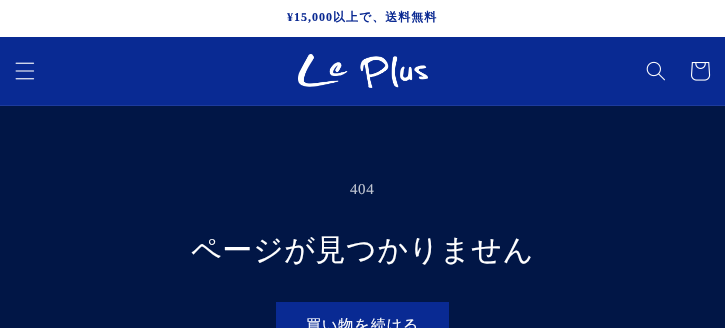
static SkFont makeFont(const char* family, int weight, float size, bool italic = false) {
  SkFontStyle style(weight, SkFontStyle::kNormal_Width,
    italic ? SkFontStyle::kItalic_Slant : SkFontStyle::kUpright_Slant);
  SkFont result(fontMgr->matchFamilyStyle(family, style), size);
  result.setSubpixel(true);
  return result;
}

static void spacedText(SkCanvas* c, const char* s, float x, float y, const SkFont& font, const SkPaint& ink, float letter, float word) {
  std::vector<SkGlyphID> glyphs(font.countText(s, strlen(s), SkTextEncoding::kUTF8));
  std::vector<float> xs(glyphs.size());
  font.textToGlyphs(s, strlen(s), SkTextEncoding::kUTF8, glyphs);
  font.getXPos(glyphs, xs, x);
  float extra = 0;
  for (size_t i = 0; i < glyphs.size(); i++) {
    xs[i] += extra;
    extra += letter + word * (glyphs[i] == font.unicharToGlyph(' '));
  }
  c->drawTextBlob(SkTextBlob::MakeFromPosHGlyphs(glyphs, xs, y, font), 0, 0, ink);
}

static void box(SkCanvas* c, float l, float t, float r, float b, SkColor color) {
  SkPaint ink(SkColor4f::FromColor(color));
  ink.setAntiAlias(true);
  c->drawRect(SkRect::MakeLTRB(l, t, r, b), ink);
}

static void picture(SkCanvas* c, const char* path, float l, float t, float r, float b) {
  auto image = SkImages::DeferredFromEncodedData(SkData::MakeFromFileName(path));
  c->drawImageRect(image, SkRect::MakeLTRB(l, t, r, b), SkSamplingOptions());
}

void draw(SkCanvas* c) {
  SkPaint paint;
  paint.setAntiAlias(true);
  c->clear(0xff011646);
  box(c, 0, 0, 725, 37, 0xffffffff);
  SkFont face1 = makeFont("Liberation Serif", 700, 12);
  paint.setColor(0xff0a2992);
  spacedText(c, "¥15,000", 287, 21, face1, paint, 1, 0);
  SkFont face2 = makeFont("WenQuanYi Zen Hei", 700, 12);
  spacedText(c, "以上で、送料無料", 333, 21, face2, paint, 1, 0);
  box(c, 0, 37, 725, 105, 0xff092a93);
  box(c, 0, 105, 725, 106, 0xff1d3b9c);
  picture(c, "img_01.png", 15, 62, 35, 80);
  picture(c, "img_02.png", 298, 54, 428, 88);
  picture(c, "img_03.png", 646, 61, 665, 81);
  picture(c, "img_04.png", 691, 62, 711, 81);
  SkFont face3 = makeFont("Liberation Serif", 400, 15);
  paint.setColor(0xffc0c5d1);
  spacedText(c, "404", 350, 194, face3, paint, 0.6f, 0);
  SkFont face4 = makeFont("WenQuanYi Zen Hei", 500, 30);
  paint.setColor(0xffffffff);
  spacedText(c, "ページが見つかりません", 191, 260, face4, paint, 0.6f, 0);
  box(c, 276, 302, 449, 328, 0xff092a93);
  SkFont face5 = makeFont("WenQuanYi Zen Hei", 500, 15);
  spacedText(c, "買い物を続ける", 306, 330, face5, paint, 1, 0);
}
